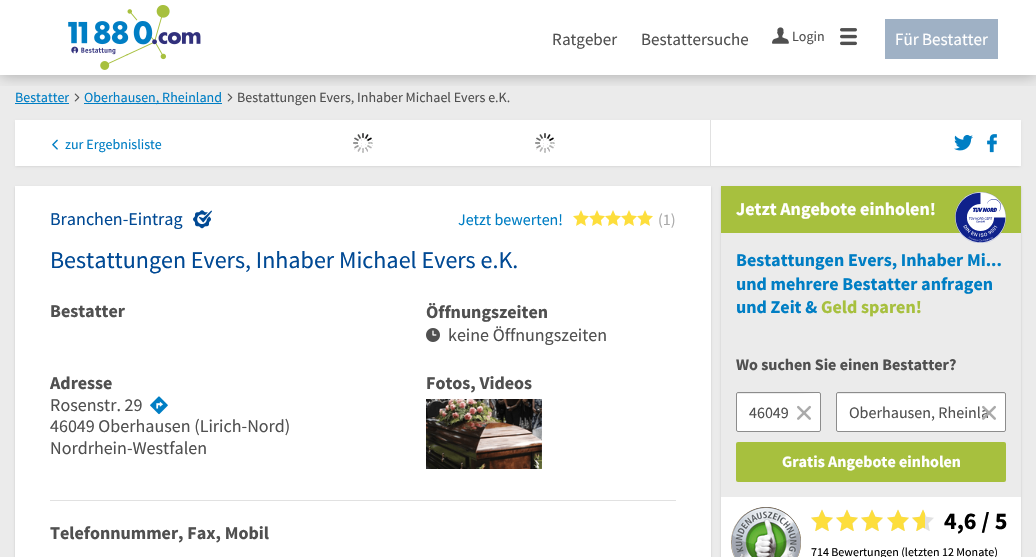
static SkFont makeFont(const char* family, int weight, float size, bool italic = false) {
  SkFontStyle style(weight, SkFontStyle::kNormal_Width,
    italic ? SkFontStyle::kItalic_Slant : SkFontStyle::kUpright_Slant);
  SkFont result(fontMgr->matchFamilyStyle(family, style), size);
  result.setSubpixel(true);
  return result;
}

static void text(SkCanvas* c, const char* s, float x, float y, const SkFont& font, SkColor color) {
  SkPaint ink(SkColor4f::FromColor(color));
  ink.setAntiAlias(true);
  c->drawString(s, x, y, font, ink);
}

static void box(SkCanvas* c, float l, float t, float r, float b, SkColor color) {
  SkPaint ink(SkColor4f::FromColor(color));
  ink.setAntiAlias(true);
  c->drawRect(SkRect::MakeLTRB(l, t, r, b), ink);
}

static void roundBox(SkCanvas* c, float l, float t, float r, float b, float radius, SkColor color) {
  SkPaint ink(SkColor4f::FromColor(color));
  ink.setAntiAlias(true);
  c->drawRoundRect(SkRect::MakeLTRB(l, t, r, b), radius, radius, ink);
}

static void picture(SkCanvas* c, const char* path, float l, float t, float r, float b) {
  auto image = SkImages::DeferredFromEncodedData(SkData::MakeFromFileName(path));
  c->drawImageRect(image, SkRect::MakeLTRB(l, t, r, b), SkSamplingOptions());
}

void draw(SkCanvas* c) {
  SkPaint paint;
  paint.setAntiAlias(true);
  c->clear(0xffffffff);
  box(c, 0, 75, 1036, 557, 0xffebebeb);
  picture(c, "img_04.png", 74, 93, 80, 102);
  picture(c, "img_04.png", 227, 93, 233, 102);
  c->save();
  c->clipRect(SkRect::MakeLTRB(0, 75, 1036, 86));
  paint.setColor(0x4d000000);
  paint.setMaskFilter(SkMaskFilter::MakeBlur(kNormal_SkBlurStyle, 7.5f));
  c->drawRect(SkRect::MakeLTRB(0, 0, 1036, 75), paint);
  paint.setMaskFilter(nullptr);
  c->restore();
  picture(c, "img_01.png", 68, 5, 201, 70);
  SkFont face1 = makeFont("Source Sans Pro", 400, 17);
  text(c, "Ratgeber", 552, 45, face1, 0xff505050);
  text(c, "Bestattersuche", 641, 45, face1, 0xff505050);
  picture(c, "img_02.png", 772, 27, 789, 44);
  SkFont face2 = makeFont("Source Sans Pro", 400, 14);
  text(c, "Login", 792, 41, face2, 0xff505050);
  picture(c, "img_03.png", 840, 28, 857, 46);
  box(c, 885, 19, 998, 59, 0xff9fb1c5);
  text(c, "Für Bestatter", 895, 45, face1, 0xffffffff);
  text(c, "Bestatter", 15, 102, face2, 0xff007ec4);
  box(c, 15, 103, 69, 104, 0xff007ec4);
  box(c, 84, 103, 222, 104, 0xff007ec4);
  text(c, "Oberhausen, Rheinland", 84, 102, face2, 0xff007ec4);
  text(c, "Bestattungen Evers, Inhaber Michael Evers e.K.", 237, 102, face2, 0xff505050);
  paint.setColor(0x26000000);
  paint.setMaskFilter(SkMaskFilter::MakeBlur(kNormal_SkBlurStyle, 1.5f));
  c->drawRect(SkRect::MakeLTRB(16, 122, 1020, 166), paint);
  paint.setMaskFilter(nullptr);
  box(c, 15, 120, 1021, 166, 0xffffffff);
  box(c, 710, 120, 711, 166, 0xffe1e1e1);
  picture(c, "img_05.png", 52, 139, 58, 150);
  text(c, "zur Ergebnisliste", 65, 149, face2, 0xff007ec4);
  picture(c, "img_06.png", 353, 133, 373, 153);
  picture(c, "img_06.png", 535, 133, 555, 153);
  picture(c, "img_07.png", 954, 134, 973, 151);
  picture(c, "img_08.png", 987, 134, 997, 153);
  paint.setMaskFilter(SkMaskFilter::MakeBlur(kNormal_SkBlurStyle, 1));
  c->drawRect(SkRect::MakeLTRB(15, 187, 711, 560), paint);
  paint.setMaskFilter(nullptr);
  box(c, 15, 186, 711, 557, 0xffffffff);
  SkFont face3 = makeFont("Source Sans Pro", 400, 18);
  text(c, "Branchen-Eintrag", 50, 225, face3, 0xff004994);
  picture(c, "img_09.png", 193, 210, 211, 229);
  picture(c, "img_10.png", 199, 210, 212, 223);
  SkFont face4 = makeFont("Source Sans Pro", 400, 16);
  text(c, "Jetzt bewerten!", 458, 225, face4, 0xff007ec4);
  picture(c, "img_11.png", 573, 210, 653, 226);
  text(c, "(1)", 658, 225, face4, 0xffaaaaaa);
  SkFont face5 = makeFont("Source Sans Pro", 400, 24);
  text(c, "Bestattungen Evers, Inhaber Michael Evers e.K.", 50, 268, face5, 0xff004994);
  SkFont face6 = makeFont("Source Sans Pro", 700, 18);
  text(c, "Bestatter", 50, 317, face6, 0xff505050);
  text(c, "Öffnungszeiten", 426, 318, face6, 0xff505050);
  picture(c, "img_12.png", 426, 328, 440, 342);
  text(c, "keine Öffnungszeiten", 448, 341, face3, 0xff505050);
  text(c, "Adresse", 50, 389, face6, 0xff505050);
  text(c, "Rosenstr. 29", 50, 411, face3, 0xff505050);
  picture(c, "img_13.png", 150, 396, 168, 415);
  text(c, "46049 Oberhausen (Lirich-Nord)", 50, 432, face3, 0xff505050);
  text(c, "Nordrhein-Westfalen", 50, 454, face3, 0xff505050);
  text(c, "Fotos, Videos", 426, 389, face6, 0xff505050);
  picture(c, "img_14.png", 426, 399, 542, 469);
  box(c, 50, 500, 676, 501, 0xffe1e1e1);
  text(c, "Telefonnummer, Fax, Mobil", 50, 539, face6, 0xff505050);
  c->save();
  c->clipPath(SkPathBuilder(SkPathFillType::kEvenOdd).moveTo(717, 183).lineTo(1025, 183).lineTo(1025, 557).lineTo(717, 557).close().moveTo(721, 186).lineTo(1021, 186).lineTo(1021, 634).lineTo(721, 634).close().detach(), true);
  paint.setMaskFilter(SkMaskFilter::MakeBlur(kNormal_SkBlurStyle, 1));
  c->drawRect(SkRect::MakeLTRB(721, 187, 1021, 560), paint);
  paint.setMaskFilter(nullptr);
  c->restore();
  box(c, 721, 186, 1021, 233, 0xffa7c03e);
  text(c, "Jetzt Angebote einholen!", 736, 215, face6, 0xffffffff);
  picture(c, "img_15.png", 955, 192, 1006, 243);
  text(c, "Bestattungen Evers, Inhaber Mi...", 736, 266, face6, 0xff007ec4);
  text(c, "und mehrere Bestatter anfragen", 736, 290, face6, 0xff007ec4);
  text(c, "und Zeit &", 736, 313, face6, 0xff007ec4);
  text(c, "Geld sparen!", 821, 313, face6, 0xffa7c03e);
  SkFont face7 = makeFont("Source Sans Pro", 700, 16);
  text(c, "Wo suchen Sie einen Bestatter?", 736, 370, face7, 0xff505050);
  roundBox(c, 736, 392, 821, 432, 2, 0xffffffff);
  paint.setColor(0xffececec);
  c->drawPath(SkPathBuilder(SkPathFillType::kEvenOdd).moveTo(738, 394).lineTo(795, 394).lineTo(819, 393).cubicTo(820, 394, 820, 395, 820, 396).cubicTo(820, 389, 816, 393, 806, 393).lineTo(738, 393).lineTo(737, 395).close().moveTo(737, 430).lineTo(737, 429).close().detach(), paint);
  paint.setStyle(SkPaint::kStroke_Style);
  paint.setStrokeWidth(1);
  paint.setColor(0xff8c8c8c);
  c->drawRoundRect(SkRect::MakeLTRB(736.5f, 392.5f, 820.5f, 431.5f), 1.5f, 1.5f, paint);
  text(c, "46049", 749, 418, face4, 0xff505050);
  picture(c, "img_16.png", 797, 405, 811, 420);
  roundBox(c, 836, 392, 1006, 432, 2, 0xffffffff);
  paint.setStyle(SkPaint::kFill_Style);
  paint.setColor(0xffececec);
  c->drawPath(SkPathBuilder().moveTo(838, 394).lineTo(1004, 394).cubicTo(1005, 394, 1005, 394, 1005, 395).lineTo(1005, 393).lineTo(838, 393).cubicTo(837, 393, 837, 394, 837, 395).cubicTo(837, 394, 837, 394, 838, 394).close().detach(), paint);
  paint.setStyle(SkPaint::kStroke_Style);
  paint.setColor(0xff8c8c8c);
  c->drawRoundRect(SkRect::MakeLTRB(836.5f, 392.5f, 1005.5f, 431.5f), 1.5f, 1.5f, paint);
  text(c, "Oberhausen, Rheinla", 849, 418, face4, 0xff505050);
  picture(c, "img_17.png", 982, 405, 996, 420);
  roundBox(c, 736, 442, 1006, 482, 2, 0xffa7c03e);
  text(c, "Gratis Angebote einholen", 782, 467, face7, 0xffffffff);
  box(c, 721, 497, 1021, 557, 0xffffffff);
  picture(c, "img_18.png", 731, 507, 801, 557);
  picture(c, "img_20.png", 811, 510, 833, 531);
  picture(c, "img_19.png", 811, 509, 833, 531);
  picture(c, "img_20.png", 836, 510, 858, 531);
  picture(c, "img_19.png", 836, 509, 858, 531);
  picture(c, "img_20.png", 861, 510, 883, 531);
  picture(c, "img_19.png", 861, 509, 883, 531);
  picture(c, "img_20.png", 887, 510, 909, 531);
  picture(c, "img_19.png", 887, 509, 909, 531);
  picture(c, "img_20.png", 912, 510, 934, 531);
  picture(c, "img_21.png", 912, 509, 925, 531);
  SkFont face8 = makeFont("Source Sans Pro", 700, 24);
  text(c, "4,6 / 5", 944, 529, face8, 0xff000000);
  SkFont face9 = makeFont("Source Sans Pro", 400, 12);
  text(c, "714 Bewertungen (letzten 12 Monate)", 811, 556, face9, 0xff000000);
}
